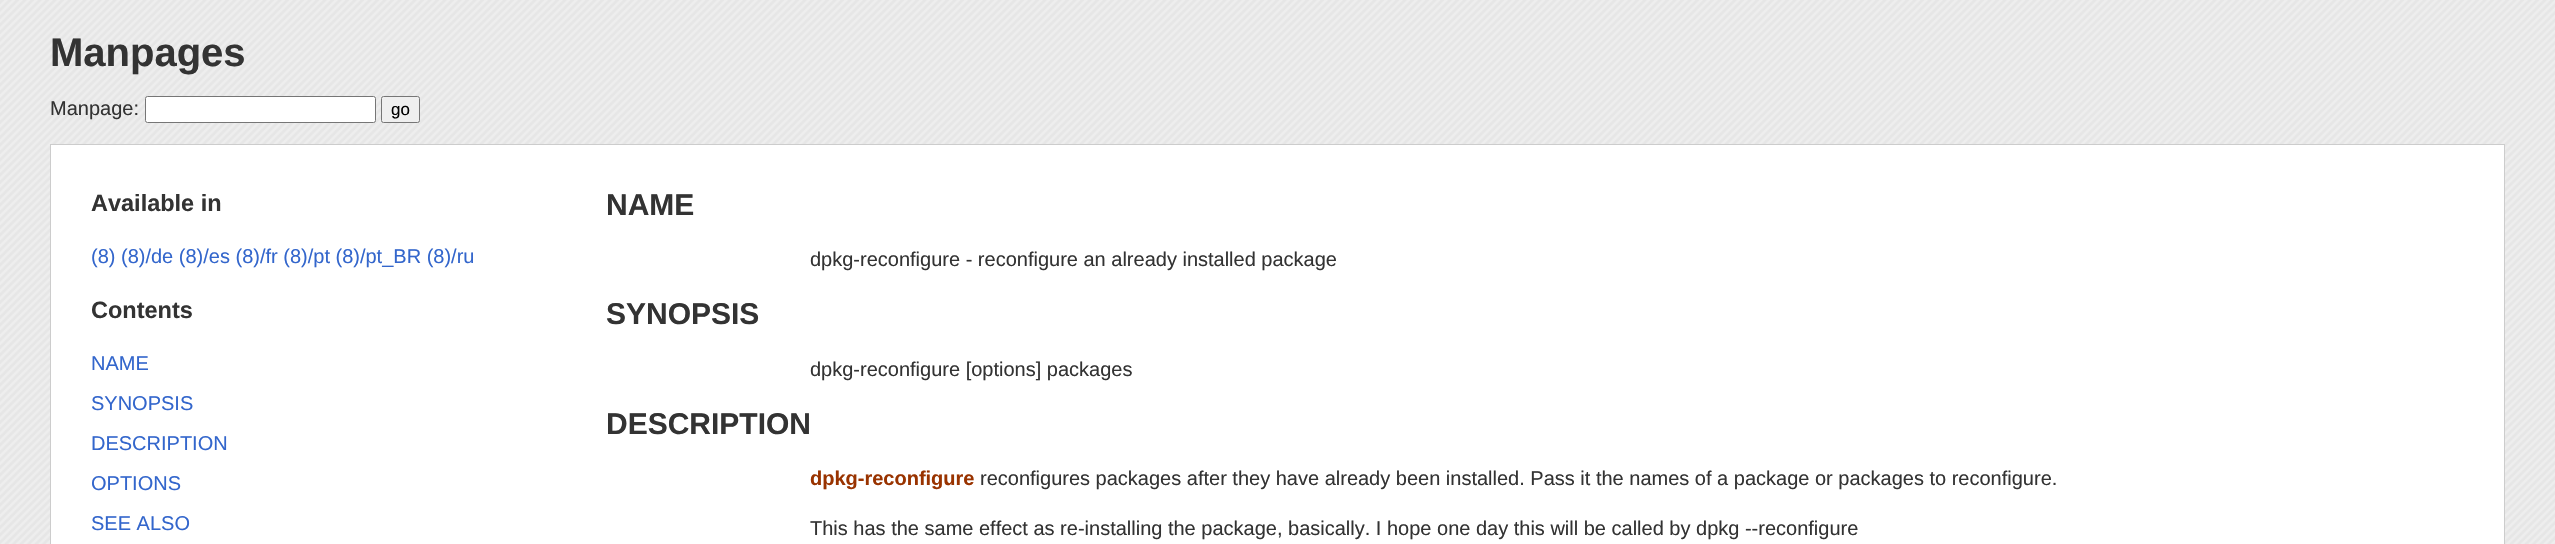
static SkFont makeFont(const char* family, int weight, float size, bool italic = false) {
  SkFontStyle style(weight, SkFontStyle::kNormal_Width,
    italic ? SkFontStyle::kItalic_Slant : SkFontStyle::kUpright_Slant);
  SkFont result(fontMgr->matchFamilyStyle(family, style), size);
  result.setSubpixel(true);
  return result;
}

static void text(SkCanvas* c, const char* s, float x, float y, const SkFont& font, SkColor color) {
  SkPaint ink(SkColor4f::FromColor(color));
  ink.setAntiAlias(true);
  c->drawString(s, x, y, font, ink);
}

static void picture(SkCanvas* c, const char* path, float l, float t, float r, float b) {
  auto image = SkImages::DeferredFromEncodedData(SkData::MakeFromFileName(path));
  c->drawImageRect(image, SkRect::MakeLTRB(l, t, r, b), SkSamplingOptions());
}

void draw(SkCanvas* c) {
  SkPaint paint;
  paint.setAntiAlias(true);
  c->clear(0xffffffff);
  picture(c, "img_01.png", 0, 0, 2555, 544);
  SkFont face1 = makeFont("Liberation Sans", 700, 40);
  text(c, "Manpages", 50, 66, face1, 0xff333333);
  SkFont face2 = makeFont("Liberation Sans", 400, 20);
  text(c, "Manpage:", 50, 115, face2, 0xff333333);
  paint.setColor(0xffffffff);
  c->drawRoundRect(SkRect::MakeLTRB(145.5f, 96.5f, 375.5f, 122.5f), 2, 2, paint);
  paint.setStyle(SkPaint::kStroke_Style);
  paint.setStrokeWidth(1);
  paint.setColor(0xff767676);
  c->drawRoundRect(SkRect::MakeLTRB(145.5f, 96.5f, 375.5f, 122.5f), 2, 2, paint);
  paint.setStyle(SkPaint::kFill_Style);
  paint.setColor(0xffefefef);
  c->drawRoundRect(SkRect::MakeLTRB(381.5f, 96.5f, 419.5f, 122.5f), 2, 2, paint);
  paint.setStyle(SkPaint::kStroke_Style);
  paint.setColor(0xff767676);
  c->drawRoundRect(SkRect::MakeLTRB(381.5f, 96.5f, 419.5f, 122.5f), 2, 2, paint);
  SkFont face3 = makeFont("Liberation Sans", 400, 17);
  text(c, "go", 391, 115, face3, 0xff000000);
  paint.setStyle(SkPaint::kFill_Style);
  paint.setColor(0xffffffff);
  c->drawRect(SkRect::MakeLTRB(50.5f, 144.5f, 2504.5f, 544.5f), paint);
  paint.setStyle(SkPaint::kStroke_Style);
  paint.setColor(0xffcccccc);
  c->drawRect(SkRect::MakeLTRB(50.5f, 144.5f, 2504.5f, 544.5f), paint);
  SkFont face4 = makeFont("Liberation Sans", 700, 23.5f);
  text(c, "Available in", 91, 211, face4, 0xff333333);
  text(c, "(8) (8)/de (8)/es (8)/fr (8)/pt (8)/pt_BR (8)/ru", 91, 263, face2, 0xff3366cc);
  text(c, "Contents", 91, 318, face4, 0xff333333);
  text(c, "NAME", 91, 370, face2, 0xff3366cc);
  text(c, "SYNOPSIS", 91, 410, face2, 0xff3366cc);
  text(c, "DESCRIPTION", 91, 450, face2, 0xff3366cc);
  text(c, "OPTIONS", 91, 490, face2, 0xff3366cc);
  text(c, "SEE ALSO", 91, 530, face2, 0xff3366cc);
  SkFont face5 = makeFont("Liberation Sans", 700, 30);
  text(c, "NAME", 606, 215, face5, 0xff333333);
  text(c, "dpkg-reconfigure - reconfigure an already installed package", 810, 266, face2, 0xff333333);
  text(c, "SYNOPSIS", 606, 324, face5, 0xff333333);
  text(c, "dpkg-reconfigure [options] packages", 810, 376, face2, 0xff333333);
  text(c, "DESCRIPTION", 606, 434, face5, 0xff333333);
  SkFont face6 = makeFont("Liberation Sans", 700, 20);
  text(c, "dpkg-reconfigure", 810, 485, face6, 0xff993300);
  text(c, "reconfigures packages after they have already been installed. Pass it the names of a package or packages to reconfigure.", 980, 485, face2, 0xff333333);
  text(c, "This has the same effect as re-installing the package, basically. I hope one day this will be called by dpkg --reconfigure", 810, 535, face2, 0xff333333);
}
